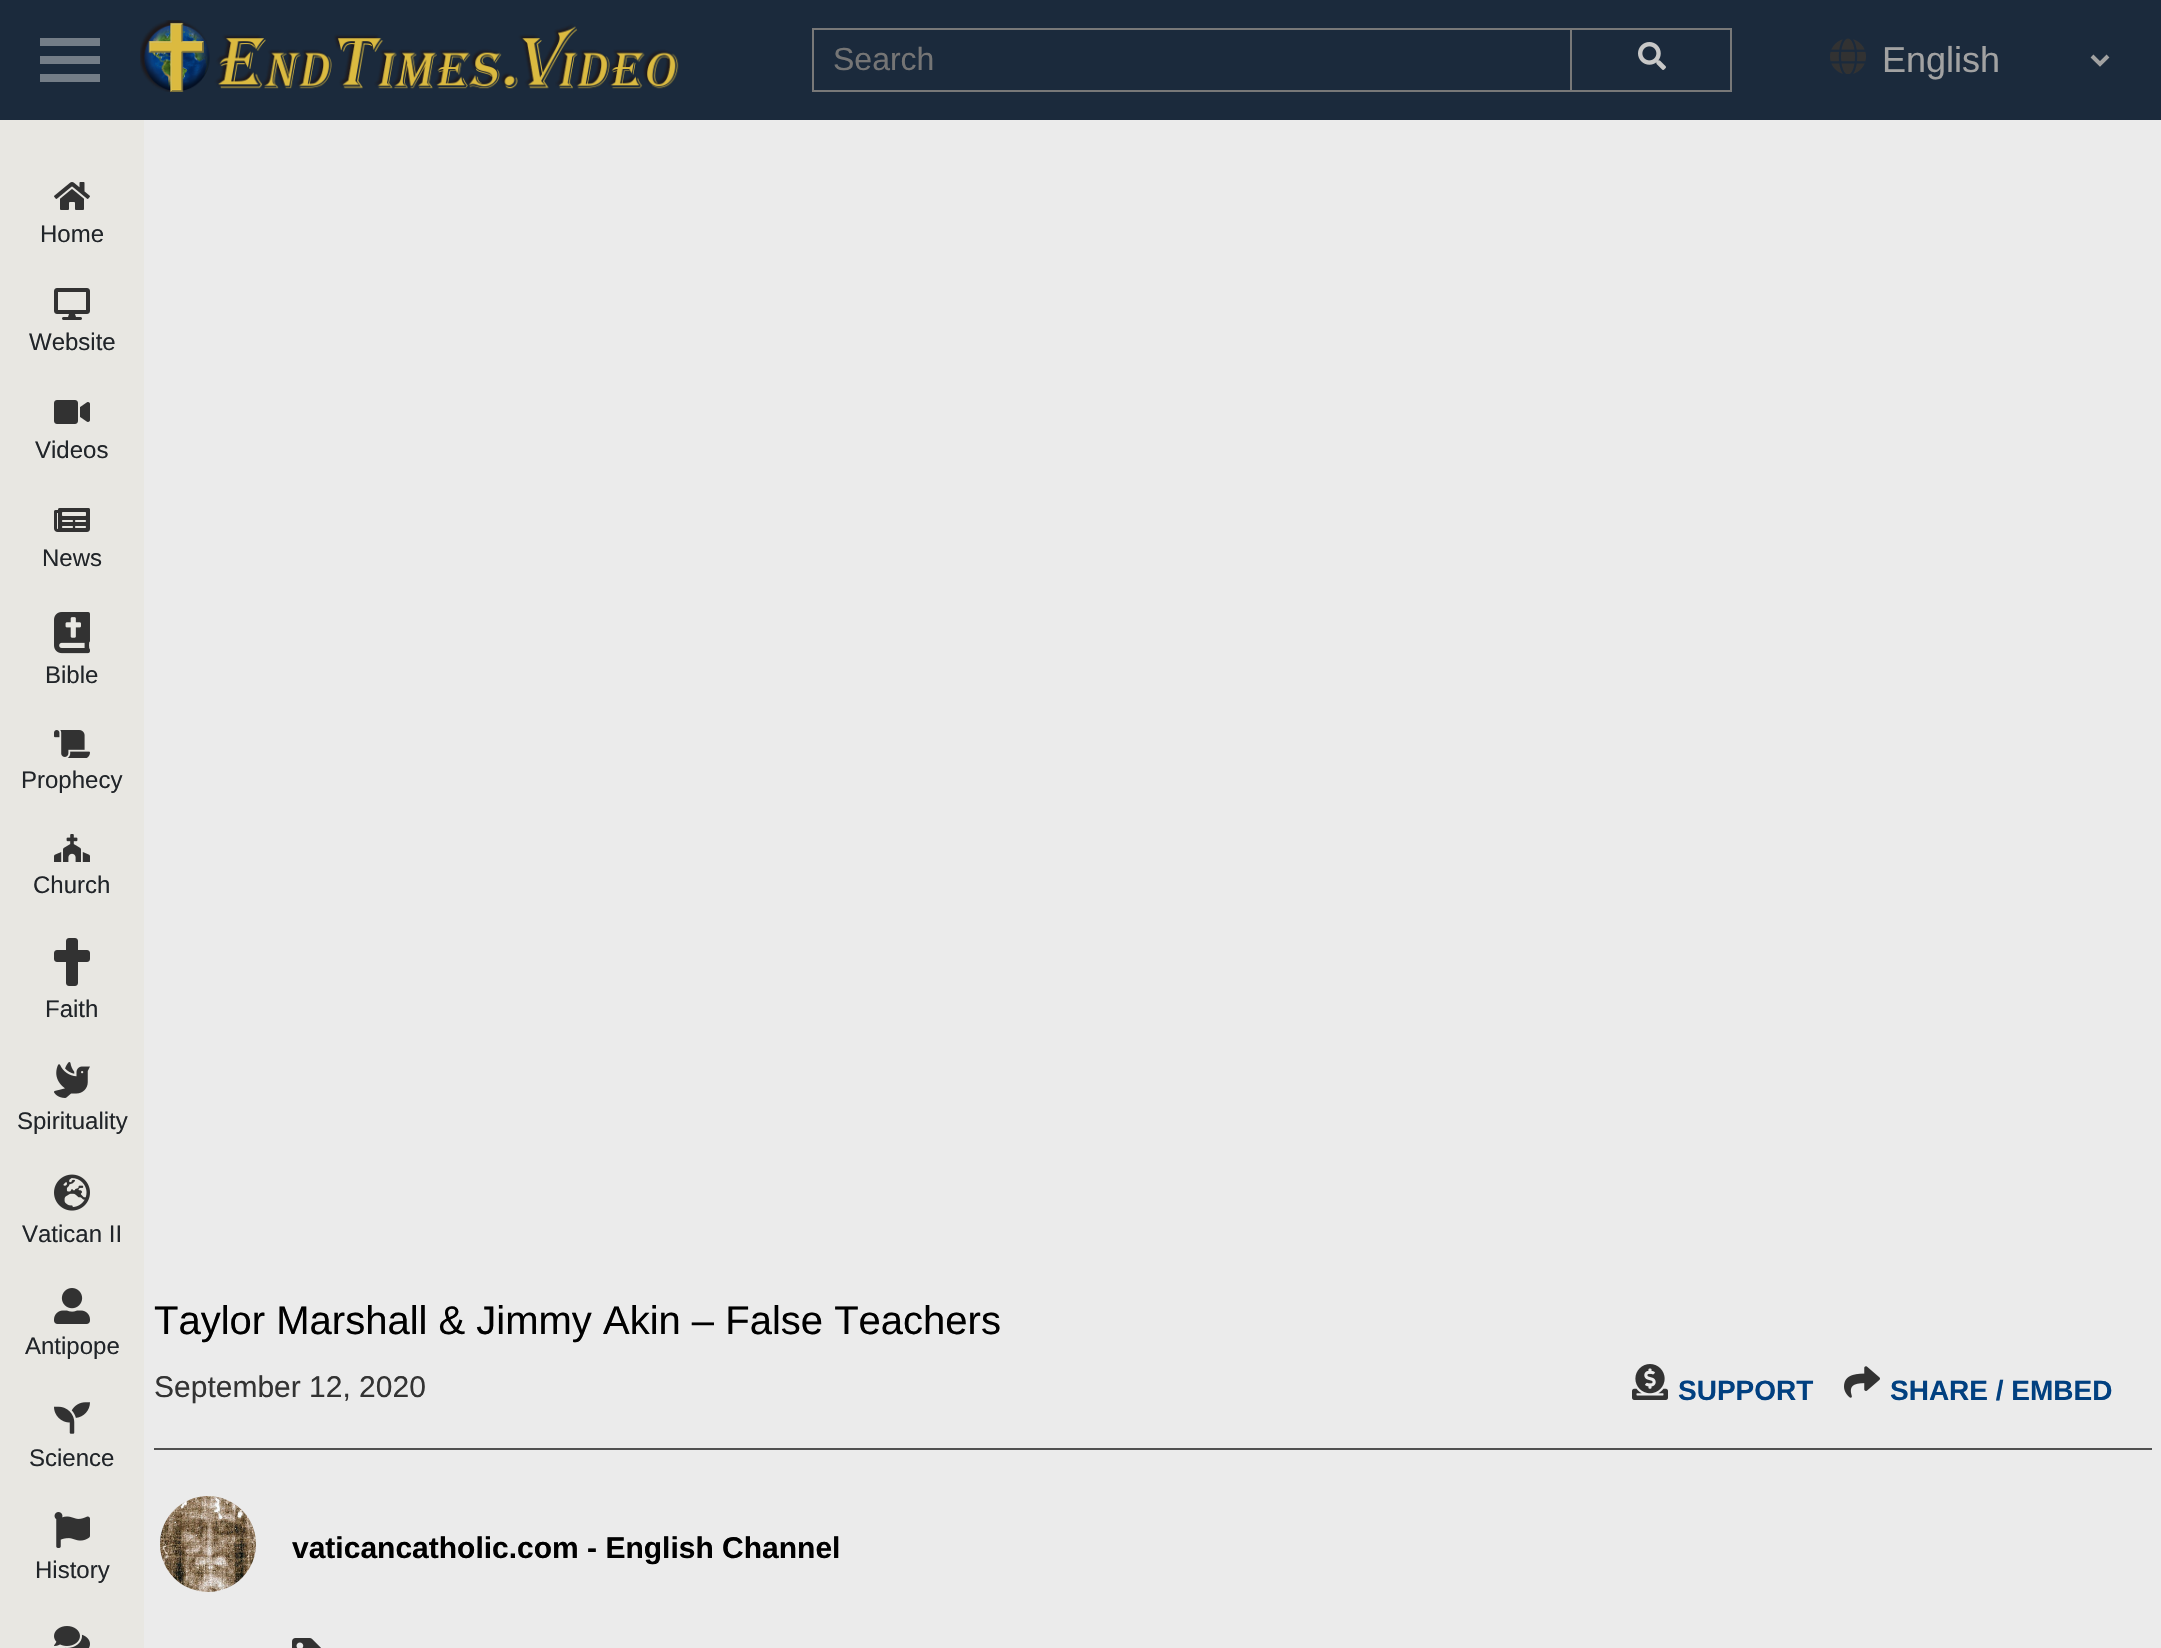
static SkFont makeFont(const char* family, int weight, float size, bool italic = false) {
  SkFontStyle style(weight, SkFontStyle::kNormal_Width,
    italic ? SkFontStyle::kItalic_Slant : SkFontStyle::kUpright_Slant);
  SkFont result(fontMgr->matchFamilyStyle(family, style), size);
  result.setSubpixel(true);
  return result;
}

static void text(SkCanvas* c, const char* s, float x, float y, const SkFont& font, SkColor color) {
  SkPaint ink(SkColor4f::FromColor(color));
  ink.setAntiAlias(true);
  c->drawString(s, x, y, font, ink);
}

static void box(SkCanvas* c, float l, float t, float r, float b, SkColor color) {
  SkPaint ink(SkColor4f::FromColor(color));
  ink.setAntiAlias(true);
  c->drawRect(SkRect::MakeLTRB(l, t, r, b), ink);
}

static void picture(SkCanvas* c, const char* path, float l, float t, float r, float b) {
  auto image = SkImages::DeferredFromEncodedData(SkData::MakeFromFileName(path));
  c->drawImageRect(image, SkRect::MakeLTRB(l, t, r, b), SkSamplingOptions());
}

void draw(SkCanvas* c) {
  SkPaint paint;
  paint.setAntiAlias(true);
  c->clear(0xffe8e7e2);
  box(c, 0, 0, 2161, 120, 0xff1b2a3c);
  box(c, 40, 38, 100, 46, 0xff747d87);
  box(c, 40, 56, 100, 64, 0xff747d87);
  box(c, 40, 74, 100, 82, 0xff747d87);
  picture(c, "img_01.png", 140, 20, 679, 92);
  paint.setStyle(SkPaint::kStroke_Style);
  paint.setStrokeWidth(2);
  paint.setColor(0xff787878);
  c->drawRect(SkRect::MakeLTRB(813, 29, 1571, 91), paint);
  SkFont face1 = makeFont("Liberation Sans", 400, 32);
  text(c, "Search", 833, 70, face1, 0xff757575);
  box(c, 1572, 28, 1732, 30, 0xff787878);
  box(c, 1730, 28, 1732, 92, 0xff787878);
  box(c, 1572, 90, 1732, 92, 0xff787878);
  picture(c, "img_02.png", 1638, 42, 1666, 70);
  picture(c, "img_03.png", 1830, 38, 1866, 74);
  paint.setStrokeWidth(4);
  paint.setColor(0xffa2a2a2);
  c->drawPath(SkPathBuilder().moveTo(2092, 56).lineTo(2100, 64).lineTo(2108, 56).detach(), paint);
  SkFont face2 = makeFont("Liberation Sans", 400, 36);
  text(c, "English", 1882, 72, face2, 0xffa2a2a2);
  box(c, 144, 120, 2161, 1648, 0xffebebeb);
  picture(c, "img_04.png", 54, 182, 90, 210);
  SkFont face3 = makeFont("Liberation Sans", 400, 24);
  text(c, "Home", 40, 242, face3, 0xff212529);
  picture(c, "img_05.png", 54, 288, 90, 320);
  text(c, "Website", 29, 350, face3, 0xff212529);
  picture(c, "img_06.png", 54, 400, 90, 424);
  text(c, "Videos", 35, 458, face3, 0xff212529);
  picture(c, "img_07.png", 54, 508, 90, 532);
  text(c, "News", 42, 566, face3, 0xff212529);
  picture(c, "img_08.png", 54, 612, 90, 654);
  text(c, "Bible", 45, 683, face3, 0xff212529);
  picture(c, "img_09.png", 54, 730, 90, 758);
  text(c, "Prophecy", 21, 788, face3, 0xff212529);
  picture(c, "img_10.png", 54, 834, 90, 862);
  text(c, "Church", 33, 893, face3, 0xff212529);
  picture(c, "img_11.png", 54, 938, 90, 986);
  text(c, "Faith", 45, 1017, face3, 0xff212529);
  picture(c, "img_12.png", 54, 1062, 90, 1098);
  text(c, "Spirituality", 17, 1129, face3, 0xff212529);
  picture(c, "img_13.png", 54, 1174, 90, 1211);
  text(c, "Vatican II", 22, 1242, face3, 0xff212529);
  picture(c, "img_14.png", 54, 1288, 90, 1324);
  text(c, "Antipope", 25, 1354, face3, 0xff212529);
  picture(c, "img_15.png", 54, 1402, 90, 1434);
  text(c, "Science", 29, 1466, face3, 0xff212529);
  picture(c, "img_16.png", 54, 1512, 90, 1548);
  text(c, "History", 35, 1578, face3, 0xff212529);
  picture(c, "img_17.png", 54, 1626, 90, 1648);
  SkFont face4 = makeFont("Liberation Sans", 400, 40);
  text(c, "Taylor Marshall & Jimmy Akin – False Teachers", 154, 1334, face4, 0xff000000);
  SkFont face5 = makeFont("Liberation Sans", 400, 30);
  text(c, "September 12, 2020", 154, 1397, face5, 0xff333333);
  picture(c, "img_18.png", 1632, 1364, 1668, 1400);
  SkFont face6 = makeFont("Liberation Sans", 700, 28);
  text(c, "SUPPORT", 1678, 1400, face6, 0xff014080);
  picture(c, "img_19.png", 1844, 1366, 1880, 1398);
  text(c, "SHARE / EMBED", 1890, 1400, face6, 0xff014080);
  box(c, 154, 1448, 2152, 1450, 0xff505050);
  picture(c, "img_20.png", 160, 1496, 256, 1592);
  SkFont face7 = makeFont("Liberation Sans", 700, 30);
  text(c, "vaticancatholic.com - English Channel", 292, 1558, face7, 0xff000000);
  picture(c, "img_21.png", 292, 1638, 321, 1648);
}
